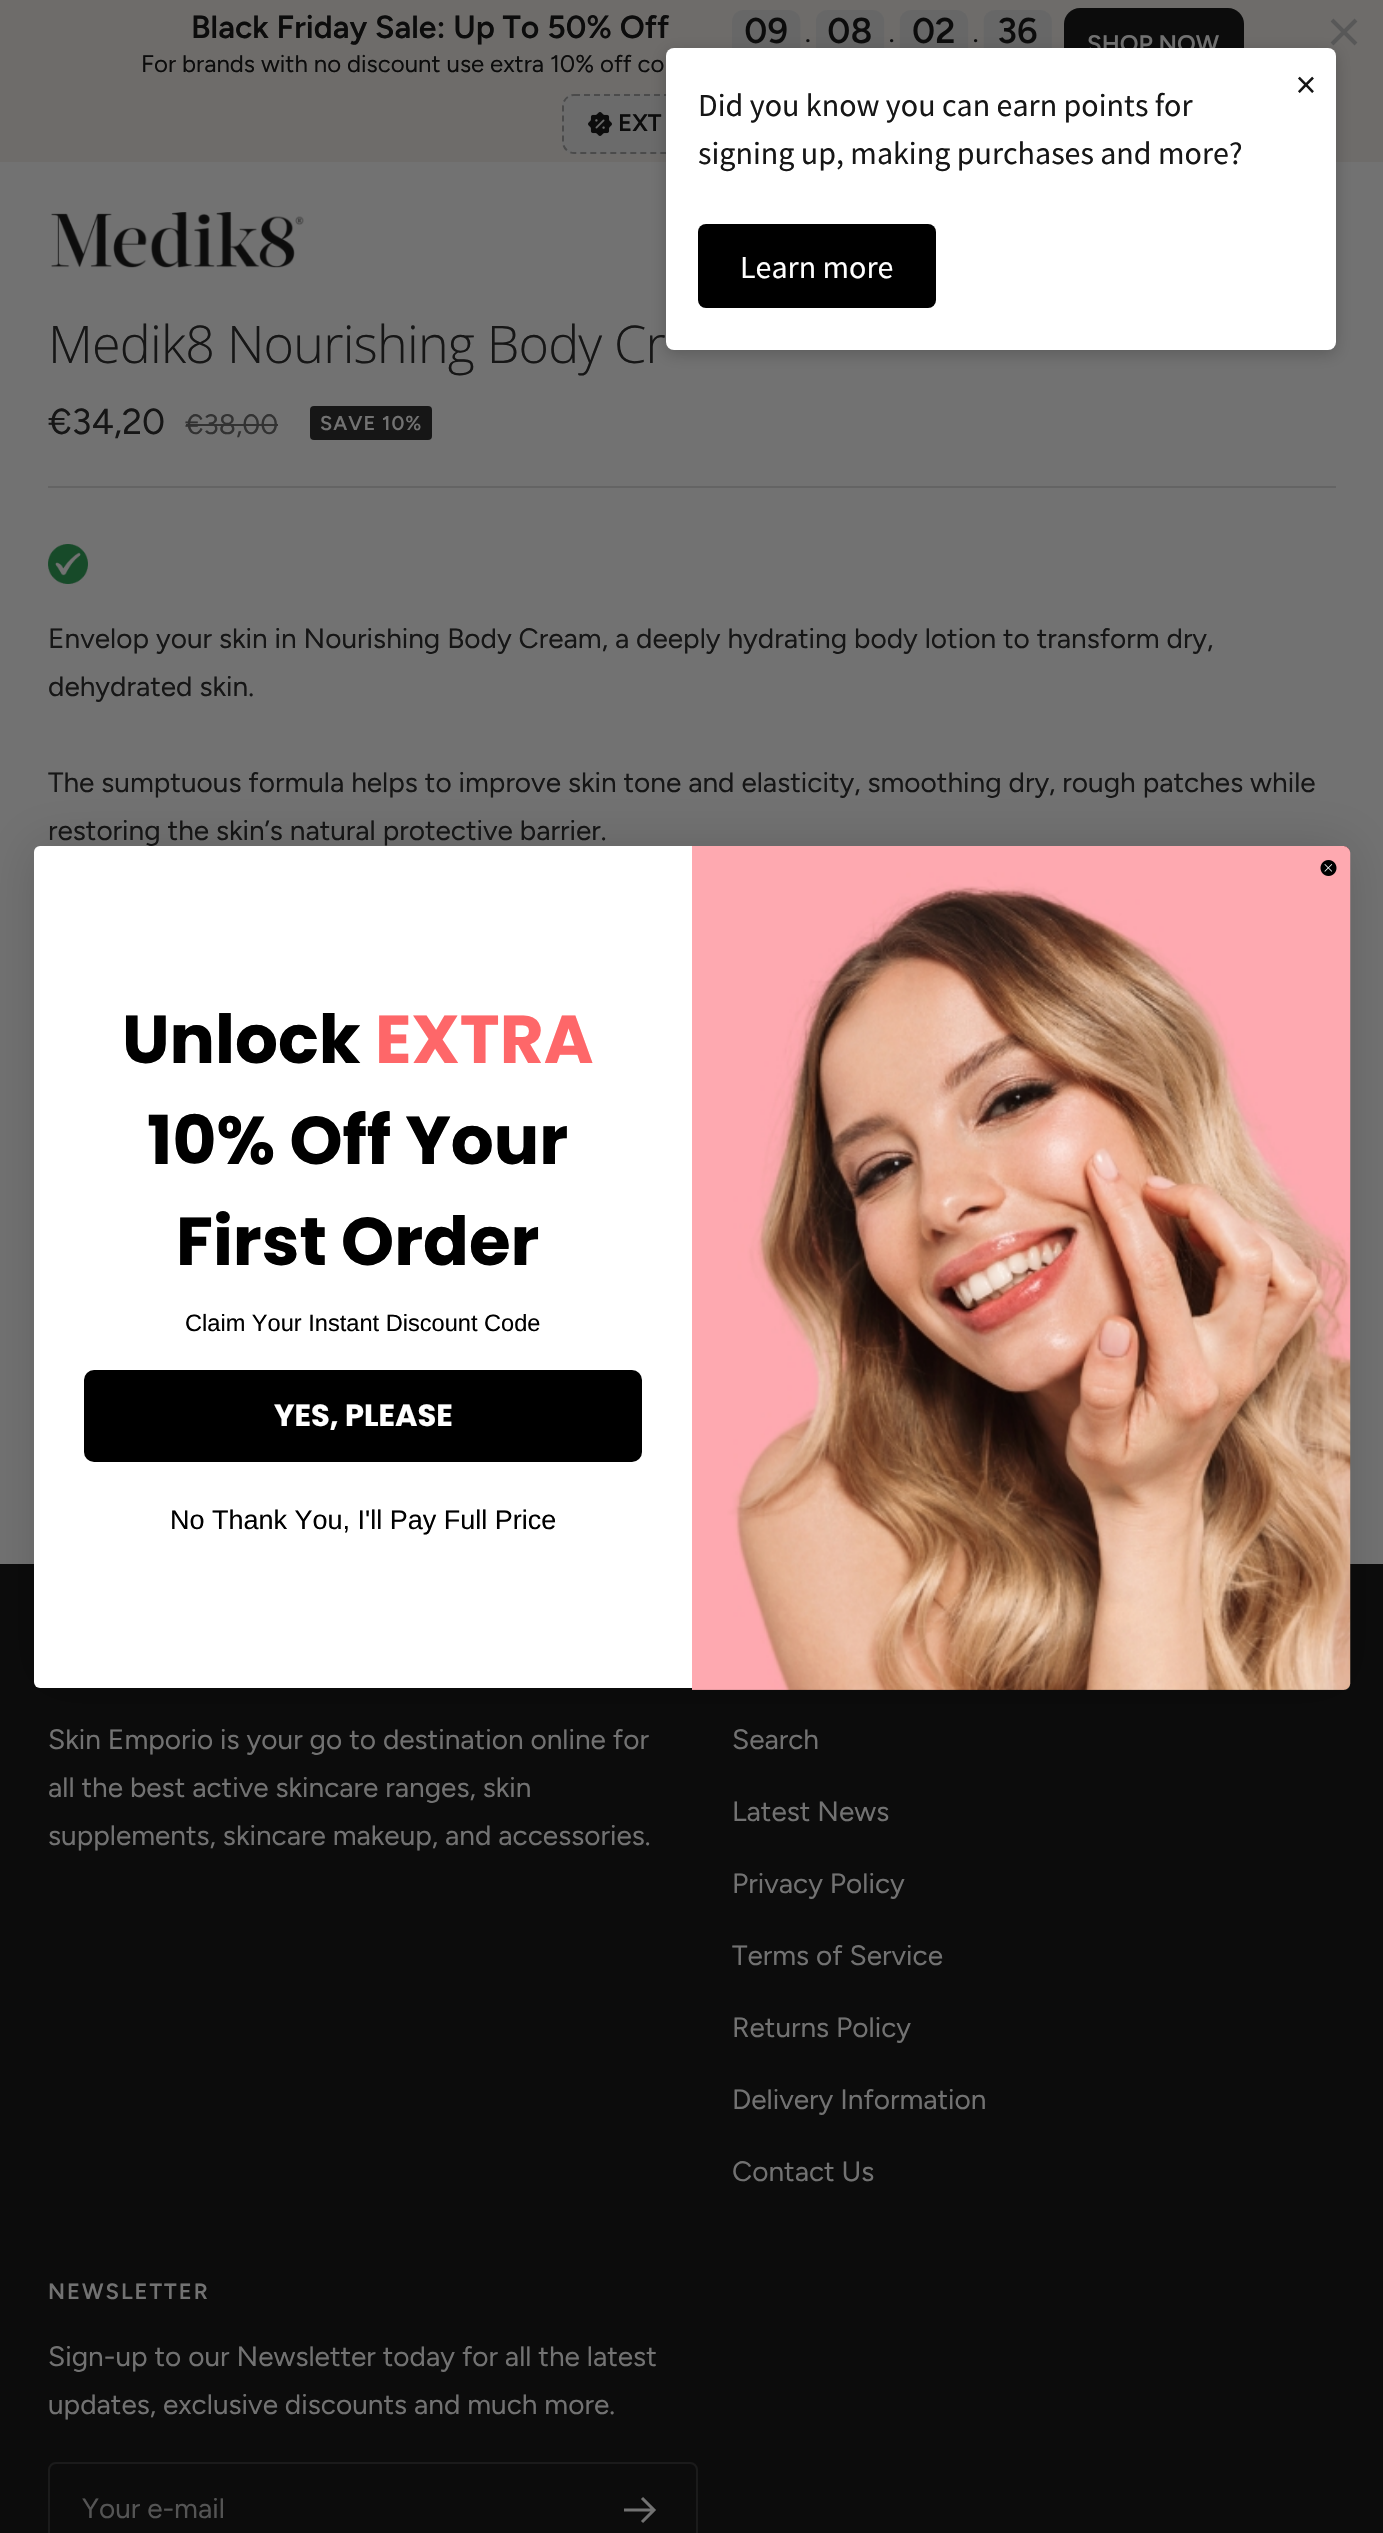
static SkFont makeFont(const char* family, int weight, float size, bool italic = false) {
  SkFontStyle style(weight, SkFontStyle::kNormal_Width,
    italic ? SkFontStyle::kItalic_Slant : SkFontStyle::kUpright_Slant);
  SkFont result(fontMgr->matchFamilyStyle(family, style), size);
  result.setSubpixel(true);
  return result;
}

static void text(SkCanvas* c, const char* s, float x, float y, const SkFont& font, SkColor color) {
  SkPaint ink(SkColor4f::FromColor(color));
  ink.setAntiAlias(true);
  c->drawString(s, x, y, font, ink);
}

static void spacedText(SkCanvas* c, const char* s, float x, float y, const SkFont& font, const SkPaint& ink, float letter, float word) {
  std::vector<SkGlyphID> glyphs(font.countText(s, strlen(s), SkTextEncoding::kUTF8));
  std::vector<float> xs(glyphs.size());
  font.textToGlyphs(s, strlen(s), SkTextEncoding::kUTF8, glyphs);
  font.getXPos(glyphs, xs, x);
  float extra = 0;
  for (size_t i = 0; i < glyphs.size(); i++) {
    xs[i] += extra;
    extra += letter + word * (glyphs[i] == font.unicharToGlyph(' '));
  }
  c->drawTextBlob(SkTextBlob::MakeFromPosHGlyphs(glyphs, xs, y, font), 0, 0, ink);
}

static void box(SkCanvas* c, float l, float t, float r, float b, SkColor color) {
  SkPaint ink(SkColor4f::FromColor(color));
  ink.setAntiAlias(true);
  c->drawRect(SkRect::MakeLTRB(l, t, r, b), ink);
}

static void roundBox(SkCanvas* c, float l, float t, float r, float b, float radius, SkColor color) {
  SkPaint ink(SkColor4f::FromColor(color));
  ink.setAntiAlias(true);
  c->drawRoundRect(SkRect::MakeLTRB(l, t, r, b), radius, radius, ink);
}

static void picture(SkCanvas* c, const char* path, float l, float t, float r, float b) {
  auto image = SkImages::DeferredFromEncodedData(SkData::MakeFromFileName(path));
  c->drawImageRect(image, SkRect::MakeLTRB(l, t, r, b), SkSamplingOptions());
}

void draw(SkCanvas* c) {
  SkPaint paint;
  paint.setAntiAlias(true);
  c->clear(0xff727272);
  box(c, 0, 0, 1383, 162, 0xff6e6c6a);
  SkFont face1 = makeFont("Figtree", 600, 32);
  text(c, "Black Friday Sale: Up To 50% Off", 191, 38, face1, 0xff0c0c0c);
  SkFont face2 = makeFont("Figtree", 400, 24);
  text(c, "For brands with no discount use extra 10% off co", 141, 72, face2, 0xff0c0c0c);
  picture(c, "img_01.png", 732, 10, 1052, 48);
  roundBox(c, 1064, 8, 1244, 82, 16, 0xff0c0c0c);
  SkFont face3 = makeFont("Figtree", 600, 24);
  text(c, "SHOP NOW", 1087, 52, face3, 0xff727272);
  roundBox(c, 562, 94, 822, 154, 12, 0xff6b6b6b);
  paint.setStyle(SkPaint::kStroke_Style);
  paint.setStrokeWidth(2);
  paint.setColor(0xff4b4b4b);
  paint.setPathEffect(SkDashPathEffect::Make({{6, 4}}, 0));
  c->drawPath(SkPathBuilder().moveTo(574, 95).lineTo(810, 95).cubicTo(816, 95, 821, 100, 821, 106).lineTo(821, 142).cubicTo(821, 148, 816, 153, 810, 153).lineTo(574, 153).cubicTo(568, 153, 563, 148, 563, 142).lineTo(563, 106).cubicTo(563, 100, 568, 95, 574, 95).close().detach(), paint);
  paint.setPathEffect(nullptr);
  picture(c, "img_02.png", 588, 112, 612, 136);
  text(c, "EXT", 618, 131, face3, 0xff0c0c0c);
  paint.setStrokeWidth(4);
  paint.setColor(0xff585858);
  c->drawPath(SkPathBuilder().moveTo(1356, 20).lineTo(1332, 44).moveTo(1356, 44).lineTo(1332, 20).detach(), paint);
  paint.setStyle(SkPaint::kFill_Style);
  paint.setColor(0x33000000);
  paint.setMaskFilter(SkMaskFilter::MakeBlur(kNormal_SkBlurStyle, 8));
  c->drawRoundRect(SkRect::MakeLTRB(666, 52, 1336, 354), 8, 8, paint);
  paint.setMaskFilter(nullptr);
  roundBox(c, 666, 48, 1336, 350, 8, 0xffffffff);
  SkFont face4 = makeFont("Source Sans Pro", 400, 40);
  text(c, "×", 1296, 98, face4, 0xff161616);
  SkFont face5 = makeFont("Source Sans Pro", 400, 32);
  text(c, "Did you know you can earn points for", 698, 116, face5, 0xff161616);
  text(c, "signing up, making purchases and more?", 698, 164, face5, 0xff161616);
  roundBox(c, 698, 224, 936, 308, 8, 0xff000000);
  text(c, "Learn more", 740, 278, face5, 0xffffffff);
  box(c, 48, 486, 1336, 488, 0xff646464);
  picture(c, "img_03.png", 51, 212, 304, 268);
  SkFont face6 = makeFont("Open Sans", 300, 52);
  paint.setColor(0xff161616);
  spacedText(c, "Medik8 Nourishing Body Cr", 48, 363, face6, paint, -0.8f, 0);
  SkFont face7 = makeFont("Figtree", 400, 36);
  text(c, "€34,20", 48, 434, face7, 0xff161616);
  SkFont face8 = makeFont("Figtree", 400, 28);
  text(c, "€38,00", 185, 434, face8, 0xff323232);
  box(c, 186, 424, 278, 426, 0xff323232);
  roundBox(c, 310, 406, 432, 440, 4, 0xff161616);
  SkFont face9 = makeFont("Figtree", 600, 20);
  paint.setColor(0xff727272);
  spacedText(c, "SAVE 10%", 320, 430, face9, paint, 1, 0);
  picture(c, "img_04.png", 48, 544, 88, 584);
  text(c, "Envelop your skin in Nourishing Body Cream, a deeply hydrating body lotion to transform dry,", 48, 648, face8, 0xff161616);
  text(c, "dehydrated skin.", 48, 696, face8, 0xff161616);
  text(c, "The sumptuous formula helps to improve skin tone and elasticity, smoothing dry, rough patches while", 48, 792, face8, 0xff161616);
  text(c, "restoring the skin’s natural protective barrier.", 48, 840, face8, 0xff161616);
  box(c, 0, 1564, 1383, 2533, 0xff0c0c0c);
  paint.setColor(0x26000000);
  paint.setMaskFilter(SkMaskFilter::MakeBlur(kNormal_SkBlurStyle, 25.5f));
  c->drawRoundRect(SkRect::MakeLTRB(34, 846, 1350, 1688), 6, 6, paint);
  paint.setMaskFilter(nullptr);
  roundBox(c, 34, 846, 1350, 1688, 6, 0xffffffff);
  paint.setColor(0xff111111);
  c->drawPath(SkPathBuilder().moveTo(692, 846).lineTo(1344, 846).cubicTo(1347.5f, 846, 1350, 848.5f, 1350, 852).lineTo(1350, 1682).cubicTo(1350, 1685.5f, 1347.5f, 1688, 1344, 1688).lineTo(692, 1688).close().detach(), paint);
  picture(c, "img_06.png", 692, 846, 1351, 1690);
  picture(c, "img_05.png", 1320, 860, 1337, 876);
  SkFont face10 = makeFont("Poppins", 700, 67.5f);
  text(c, "Unlock", 122, 1063, face10, 0xff000000);
  text(c, "EXTRA", 375, 1063, face10, 0xfffe6769);
  text(c, "10% Off Your", 147, 1164, face10, 0xff000000);
  text(c, "First Order", 176, 1265, face10, 0xff000000);
  SkFont face11 = makeFont("Liberation Sans", 400, 23.6f);
  text(c, "Claim Your Instant Discount Code", 185, 1331, face11, 0xff000000);
  roundBox(c, 84, 1370, 642, 1462, 10, 0xff000000);
  SkFont face12 = makeFont("Poppins", 700, 30.5f);
  text(c, "YES, PLEASE", 274, 1426, face12, 0xffffffff);
  SkFont face13 = makeFont("Liberation Sans", 400, 27);
  text(c, "No Thank You, I'll Pay Full Price", 170, 1529, face13, 0xff000000);
  text(c, "Skin Emporio is your go to destination online for", 48, 1749, face8, 0xff727272);
  text(c, "all the best active skincare ranges, skin", 48, 1797, face8, 0xff727272);
  text(c, "supplements, skincare makeup, and accessories.", 48, 1845, face8, 0xff727272);
  text(c, "Search", 732, 1749, face8, 0xff727272);
  text(c, "Latest News", 732, 1821, face8, 0xff727272);
  text(c, "Privacy Policy", 732, 1893, face8, 0xff727272);
  text(c, "Terms of Service", 732, 1965, face8, 0xff727272);
  text(c, "Returns Policy", 732, 2037, face8, 0xff727272);
  text(c, "Delivery Information", 732, 2109, face8, 0xff727272);
  text(c, "Contact Us", 732, 2181, face8, 0xff727272);
  SkFont face14 = makeFont("Figtree", 600, 22);
  paint.setColor(0xff727272);
  spacedText(c, "NEWSLETTER", 48, 2299, face14, paint, 2, 0);
  text(c, "Sign-up to our Newsletter today for all the latest", 48, 2366, face8, 0xff727272);
  text(c, "updates, exclusive discounts and much more.", 48, 2414, face8, 0xff727272);
  paint.setStyle(SkPaint::kStroke_Style);
  paint.setStrokeWidth(2);
  paint.setColor(0xff1b1b1b);
  c->drawRoundRect(SkRect::MakeLTRB(49, 2463, 697, 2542), 7, 7, paint);
  text(c, "Your e-mail", 82, 2518, face8, 0xff545454);
  paint.setStrokeWidth(3);
  paint.setColor(0xff727272);
  c->drawPath(SkPathBuilder().moveTo(624, 2510).lineTo(654, 2510).moveTo(642, 2498).lineTo(654, 2510).lineTo(642, 2522).detach(), paint);
}
